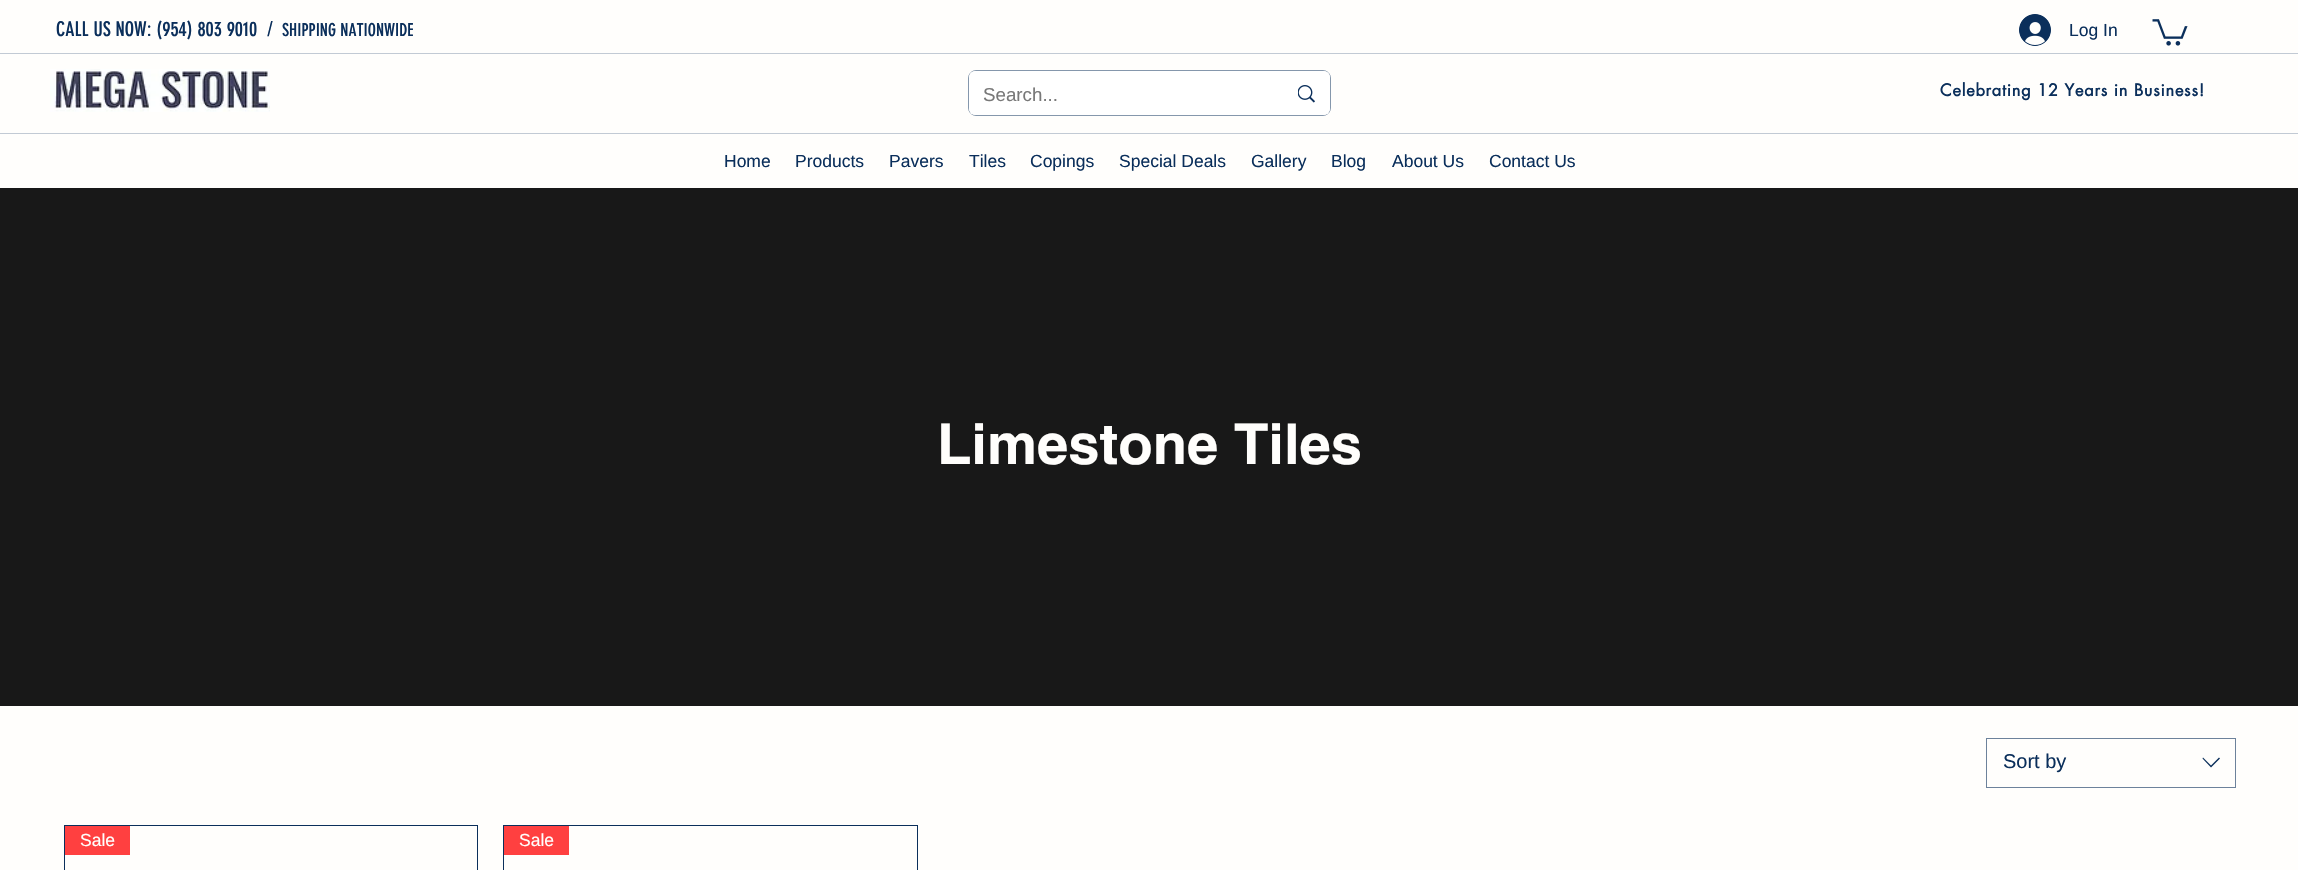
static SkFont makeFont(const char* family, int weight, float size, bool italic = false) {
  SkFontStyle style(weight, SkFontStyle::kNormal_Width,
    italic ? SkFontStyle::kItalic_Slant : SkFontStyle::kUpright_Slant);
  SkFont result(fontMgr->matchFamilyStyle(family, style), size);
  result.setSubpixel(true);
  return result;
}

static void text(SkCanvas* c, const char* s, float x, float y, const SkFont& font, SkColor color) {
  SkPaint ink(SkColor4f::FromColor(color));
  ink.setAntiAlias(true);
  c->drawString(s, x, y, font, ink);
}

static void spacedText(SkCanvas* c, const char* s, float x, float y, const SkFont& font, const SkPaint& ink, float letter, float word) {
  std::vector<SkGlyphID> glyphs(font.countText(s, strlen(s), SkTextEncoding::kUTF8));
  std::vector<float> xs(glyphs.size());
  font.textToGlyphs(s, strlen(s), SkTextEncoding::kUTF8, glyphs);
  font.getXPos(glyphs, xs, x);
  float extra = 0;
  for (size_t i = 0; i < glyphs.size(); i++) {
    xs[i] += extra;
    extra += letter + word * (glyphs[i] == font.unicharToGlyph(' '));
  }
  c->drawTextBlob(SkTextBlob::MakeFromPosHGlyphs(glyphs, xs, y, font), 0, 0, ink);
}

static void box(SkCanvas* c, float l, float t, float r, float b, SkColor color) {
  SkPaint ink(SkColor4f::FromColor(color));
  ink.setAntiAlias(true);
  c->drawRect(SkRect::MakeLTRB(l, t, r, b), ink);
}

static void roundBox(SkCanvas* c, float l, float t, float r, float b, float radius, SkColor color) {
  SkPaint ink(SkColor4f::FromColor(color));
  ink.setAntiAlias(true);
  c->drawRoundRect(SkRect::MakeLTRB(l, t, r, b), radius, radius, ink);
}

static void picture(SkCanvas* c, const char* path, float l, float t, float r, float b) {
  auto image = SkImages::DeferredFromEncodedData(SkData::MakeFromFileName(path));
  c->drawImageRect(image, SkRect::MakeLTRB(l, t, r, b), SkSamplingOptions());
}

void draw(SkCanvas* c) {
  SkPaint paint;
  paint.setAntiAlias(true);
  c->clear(0xfffffefc);
  SkFont face1 = makeFont("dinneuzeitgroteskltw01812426", 400, 20);
  text(c, "CALL US NOW: (954) 803 9010", 56, 36, face1, 0xff0b2f5b);
  text(c, "/", 267, 36, face1, 0xff0b2f5b);
  SkFont face2 = makeFont("dinneuzeitgroteskltw01812426", 400, 17.5f);
  text(c, "SHIPPING NATIONWIDE", 282, 36, face2, 0xff0b2f5b);
  picture(c, "img_01.png", 50, 69, 270, 112);
  paint.setStyle(SkPaint::kStroke_Style);
  paint.setStrokeWidth(1);
  paint.setColor(0xff8597ac);
  c->drawRoundRect(SkRect::MakeLTRB(968.5f, 70.5f, 1330.5f, 115.5f), 7.5f, 7.5f, paint);
  roundBox(c, 969, 71, 1330, 115, 6, 0xffffffff);
  SkFont face3 = makeFont("Liberation Sans", 400, 18.75f);
  text(c, "Search...", 983, 101, face3, 0xff787878);
  picture(c, "img_02.png", 1298, 85, 1315, 103);
  picture(c, "img_03.png", 2019, 14, 2051, 46);
  SkFont face4 = makeFont("Liberation Sans", 400, 17.5f);
  text(c, "Log In", 2069, 36, face4, 0xff0b2f5b);
  picture(c, "img_04.png", 2152, 19, 2188, 46);
  SkFont face5 = makeFont("futura", 700, 16.25f);
  paint.setStyle(SkPaint::kFill_Style);
  paint.setColor(0xff0b2f5b);
  spacedText(c, "Celebrating 12 Years in Business!", 1940, 96, face5, paint, 0.8f, 0);
  box(c, 0, 53, 2298, 54, 0xffc2cad4);
  box(c, 0, 133, 2298, 134, 0xffc2cad4);
  text(c, "Home", 724, 167, face4, 0xff0b2f5b);
  text(c, "Products", 795, 167, face4, 0xff0b2f5b);
  text(c, "Pavers", 889, 167, face4, 0xff0b2f5b);
  text(c, "Tiles", 969, 167, face4, 0xff0b2f5b);
  text(c, "Copings", 1030, 167, face4, 0xff0b2f5b);
  text(c, "Special Deals", 1119, 167, face4, 0xff0b2f5b);
  text(c, "Gallery", 1251, 167, face4, 0xff0b2f5b);
  text(c, "Blog", 1331, 167, face4, 0xff0b2f5b);
  text(c, "About Us", 1392, 167, face4, 0xff0b2f5b);
  text(c, "Contact Us", 1489, 167, face4, 0xff0b2f5b);
  box(c, 0, 188, 2298, 706, 0xff181818);
  SkFont face6 = makeFont("helvetica", 700, 56.25f);
  text(c, "Limestone Tiles", 937, 464, face6, 0xfffffefc);
  paint.setStyle(SkPaint::kStroke_Style);
  paint.setColor(0xff6d829b);
  c->drawRect(SkRect::MakeLTRB(1986.5f, 738.5f, 2235.5f, 787.5f), paint);
  SkFont face7 = makeFont("Liberation Sans", 400, 20);
  text(c, "Sort by", 2003, 768, face7, 0xff0b2f5b);
  paint.setStyle(SkPaint::kFill_Style);
  paint.setColor(0xff0b2f5b);
  c->drawPath(SkPathBuilder(SkPathFillType::kEvenOdd).moveTo(2219, 757.5f).lineTo(2220, 758.5f).lineTo(2211, 767.5f).lineTo(2202.5f, 758.5f).lineTo(2203, 757.5f).lineTo(2211, 765.5f).close().detach(), paint);
  paint.setStyle(SkPaint::kStroke_Style);
  c->drawRect(SkRect::MakeLTRB(64.5f, 825.5f, 477.5f, 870.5f), paint);
  box(c, 65, 826, 130, 855, 0xffff4040);
  text(c, "Sale", 80, 846, face4, 0xfffffefc);
  c->drawRect(SkRect::MakeLTRB(503.5f, 825.5f, 917.5f, 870.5f), paint);
  box(c, 504, 826, 569, 855, 0xffff4040);
  text(c, "Sale", 519, 846, face4, 0xfffffefc);
}
